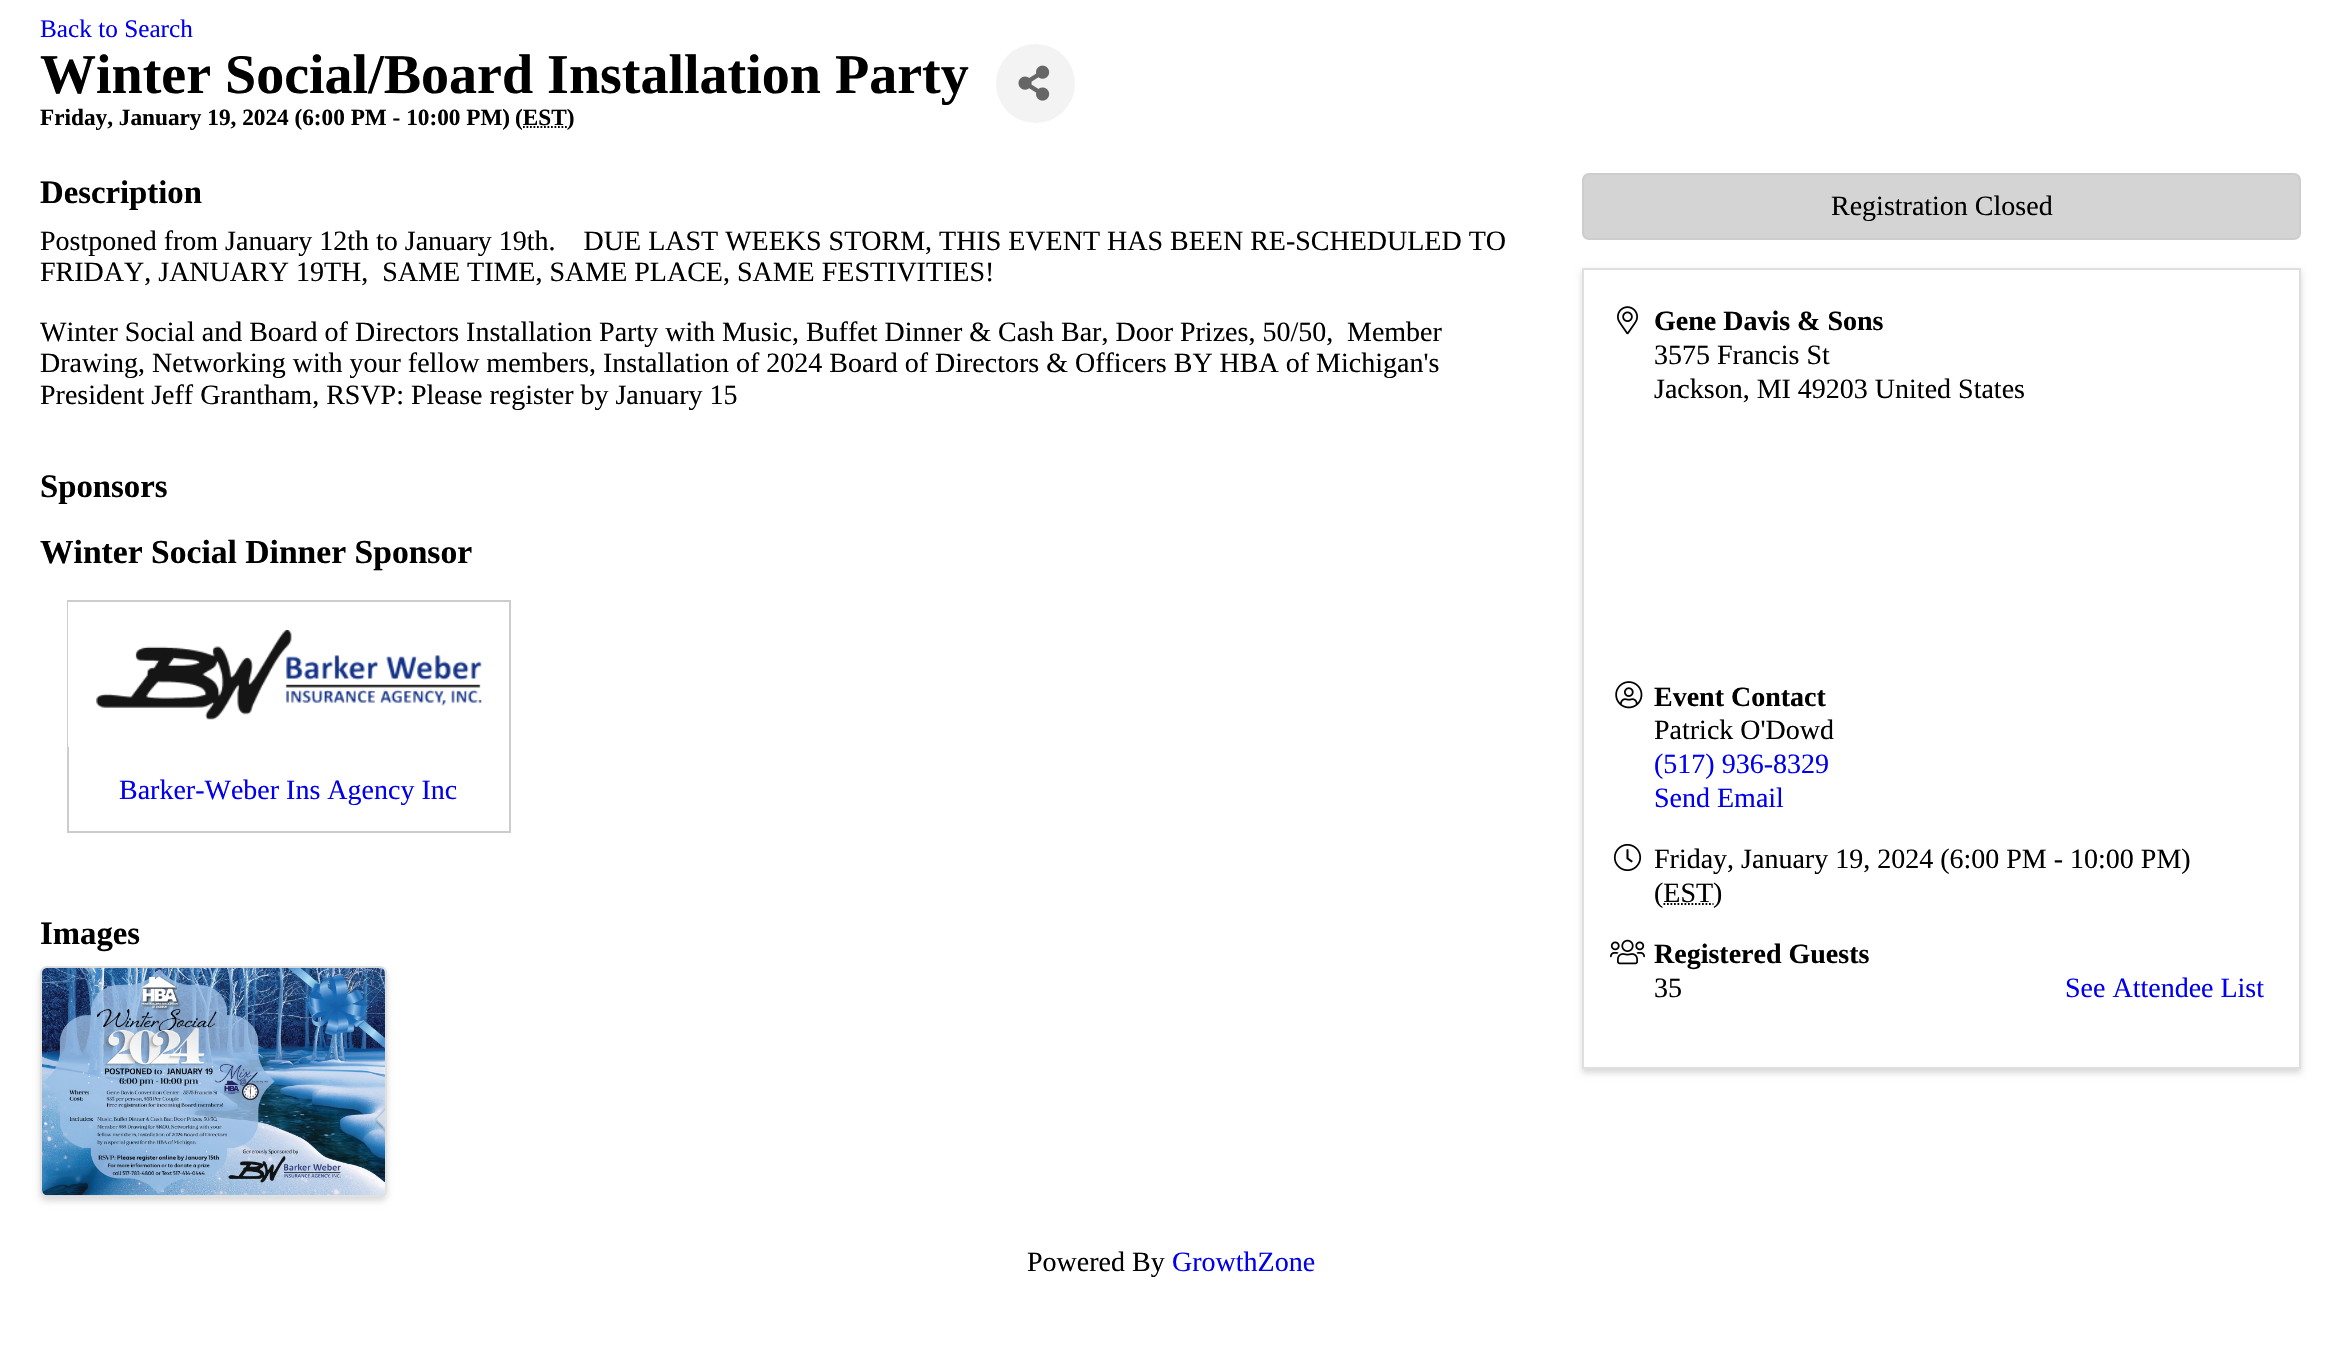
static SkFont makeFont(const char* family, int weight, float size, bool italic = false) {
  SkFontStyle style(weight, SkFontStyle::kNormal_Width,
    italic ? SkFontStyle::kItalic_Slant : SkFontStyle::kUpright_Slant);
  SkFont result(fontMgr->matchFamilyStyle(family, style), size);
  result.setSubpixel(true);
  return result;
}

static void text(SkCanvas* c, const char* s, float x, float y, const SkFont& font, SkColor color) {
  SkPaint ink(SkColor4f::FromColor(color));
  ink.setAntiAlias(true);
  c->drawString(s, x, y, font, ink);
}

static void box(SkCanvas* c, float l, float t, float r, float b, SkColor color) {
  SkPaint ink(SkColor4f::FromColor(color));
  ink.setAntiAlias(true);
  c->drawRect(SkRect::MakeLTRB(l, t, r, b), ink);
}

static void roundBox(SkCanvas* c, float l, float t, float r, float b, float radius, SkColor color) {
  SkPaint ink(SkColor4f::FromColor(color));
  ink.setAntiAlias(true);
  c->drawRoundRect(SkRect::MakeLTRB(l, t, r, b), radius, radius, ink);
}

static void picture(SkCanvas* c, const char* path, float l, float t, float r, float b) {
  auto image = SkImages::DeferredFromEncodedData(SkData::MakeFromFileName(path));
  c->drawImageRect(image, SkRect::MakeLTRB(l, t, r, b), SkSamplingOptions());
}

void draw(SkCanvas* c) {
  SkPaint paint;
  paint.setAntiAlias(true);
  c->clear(0xffffffff);
  SkFont face1 = makeFont("Liberation Serif", 400, 25.25f);
  text(c, "Back to Search", 40, 37, face1, 0xff0000ee);
  SkFont face2 = makeFont("Liberation Serif", 700, 56);
  text(c, "Winter Social/Board Installation Party", 40, 93, face2, 0xff000000);
  SkFont face3 = makeFont("Liberation Serif", 700, 23.25f);
  text(c, "Friday, January 19, 2024 (6:00 PM - 10:00 PM)", 40, 125, face3, 0xff000000);
  text(c, "(EST)", 515, 125, face3, 0xff000000);
  paint.setStyle(SkPaint::kStroke_Style);
  paint.setStrokeWidth(1.8f);
  paint.setColor(0xff000000);
  paint.setPathEffect(SkDashPathEffect::Make({{1.75f, 1.75f}}, 0));
  c->drawPath(SkPathBuilder().moveTo(523, 127).lineTo(567, 127).detach(), paint);
  paint.setPathEffect(nullptr);
  paint.setStyle(SkPaint::kFill_Style);
  paint.setColor(0xfff3f3f3);
  c->drawCircle(1035.5f, 83.5f, 39.5f, paint);
  picture(c, "img_01.png", 1018, 65, 1050, 101);
  SkFont face4 = makeFont("Liberation Serif", 700, 32.75f);
  text(c, "Description", 40, 203, face4, 0xff000000);
  SkFont face5 = makeFont("Liberation Serif", 400, 28);
  text(c, "Postponed from January 12th to January 19th.    DUE LAST WEEKS STORM, THIS EVENT HAS BEEN RE-SCHEDULED TO", 40, 250, face5, 0xff000000);
  text(c, "FRIDAY, JANUARY 19TH,  SAME TIME, SAME PLACE, SAME FESTIVITIES!", 40, 281, face5, 0xff000000);
  text(c, "Winter Social and Board of Directors Installation Party with Music, Buffet Dinner & Cash Bar, Door Prizes, 50/50,", 40, 341, face5, 0xff000000);
  text(c, "Member", 1347, 341, face5, 0xff000000);
  text(c, "Drawing, Networking with your fellow members, Installation of 2024 Board of Directors & Officers BY HBA of Michigan's", 40, 372, face5, 0xff000000);
  text(c, "President Jeff Grantham, RSVP: Please register by January 15", 40, 404, face5, 0xff000000);
  text(c, "Sponsors", 40, 497, face4, 0xff000000);
  SkFont face6 = makeFont("Liberation Serif", 700, 33.6f);
  text(c, "Winter Social Dinner Sponsor", 40, 563, face6, 0xff000000);
  paint.setStyle(SkPaint::kStroke_Style);
  paint.setStrokeWidth(2);
  paint.setColor(0xffcccccc);
  c->drawRect(SkRect::MakeLTRB(68, 601, 510, 832), paint);
  box(c, 68, 602, 69, 747, 0xffffffff);
  picture(c, "img_02.png", 96, 630, 482, 720);
  text(c, "Barker-Weber Ins Agency Inc", 119, 799, face5, 0xff0000ee);
  text(c, "Images", 40, 944, face4, 0xff000000);
  paint.setStyle(SkPaint::kFill_Style);
  paint.setColor(0x26000000);
  paint.setMaskFilter(SkMaskFilter::MakeBlur(kNormal_SkBlurStyle, 3));
  c->drawRoundRect(SkRect::MakeLTRB(40, 970, 387, 1201), 7, 7, paint);
  paint.setMaskFilter(nullptr);
  roundBox(c, 40, 966, 387, 1197, 7, 0xffffffff);
  paint.setStyle(SkPaint::kStroke_Style);
  paint.setColor(0x1f000000);
  c->drawRoundRect(SkRect::MakeLTRB(41, 967, 386, 1196), 6, 6, paint);
  picture(c, "img_03.png", 42, 967, 385, 1196);
  paint.setStyle(SkPaint::kFill_Style);
  paint.setColor(0xffd4d4d4);
  c->drawRoundRect(SkRect::MakeLTRB(1583, 174, 2300, 239), 6, 6, paint);
  paint.setStyle(SkPaint::kStroke_Style);
  paint.setColor(0xffcdcdcd);
  c->drawRoundRect(SkRect::MakeLTRB(1583, 174, 2300, 239), 6, 6, paint);
  text(c, "Registration Closed", 1831, 215, face5, 0xff000000);
  c->save();
  c->clipPath(SkPathBuilder(SkPathFillType::kEvenOdd).moveTo(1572, 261).lineTo(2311, 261).lineTo(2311, 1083).lineTo(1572, 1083).close().moveTo(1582, 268).lineTo(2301, 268).lineTo(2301, 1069).lineTo(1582, 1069).close().detach(), true);
  paint.setStyle(SkPaint::kFill_Style);
  paint.setColor(0x26000000);
  paint.setMaskFilter(SkMaskFilter::MakeBlur(kNormal_SkBlurStyle, 3));
  c->drawRect(SkRect::MakeLTRB(1582, 271, 2301, 1073), paint);
  paint.setMaskFilter(nullptr);
  c->restore();
  paint.setStyle(SkPaint::kStroke_Style);
  paint.setColor(0xffdfdfdf);
  c->drawRect(SkRect::MakeLTRB(1583, 269, 2300, 1068), paint);
  picture(c, "img_04.png", 1617, 306, 1638, 335);
  SkFont face7 = makeFont("Liberation Serif", 700, 28);
  text(c, "Gene Davis & Sons", 1654, 330, face7, 0xff000000);
  text(c, "3575 Francis St", 1654, 364, face5, 0xff000000);
  text(c, "Jackson, MI 49203 United States", 1654, 398, face5, 0xff000000);
  picture(c, "img_05.png", 1615, 681, 1643, 709);
  text(c, "Event Contact", 1654, 706, face7, 0xff000000);
  text(c, "Patrick O'Dowd", 1654, 739, face5, 0xff000000);
  text(c, "(517) 936-8329", 1654, 773, face5, 0xff0000ee);
  text(c, "Send Email", 1654, 807, face5, 0xff0000ee);
  picture(c, "img_06.png", 1613, 843, 1642, 872);
  text(c, "Friday, January 19, 2024 (6:00 PM - 10:00 PM)", 1654, 868, face5, 0xff000000);
  text(c, "(EST)", 1654, 902, face5, 0xff000000);
  paint.setStrokeWidth(1.8f);
  paint.setColor(0xff000000);
  paint.setPathEffect(SkDashPathEffect::Make({{1.75f, 1.75f}}, 0));
  c->drawPath(SkPathBuilder().moveTo(1663.5f, 904).lineTo(1713.5f, 904).detach(), paint);
  paint.setPathEffect(nullptr);
  picture(c, "img_07.png", 1610, 939, 1645, 965);
  text(c, "Registered Guests", 1654, 963, face7, 0xff000000);
  text(c, "35", 1654, 997, face5, 0xff000000);
  text(c, "See Attendee List", 2065, 997, face5, 0xff0000ee);
  text(c, "Powered By", 1027, 1271, face5, 0xff000000);
  text(c, "GrowthZone", 1172, 1271, face5, 0xff0000ee);
}
